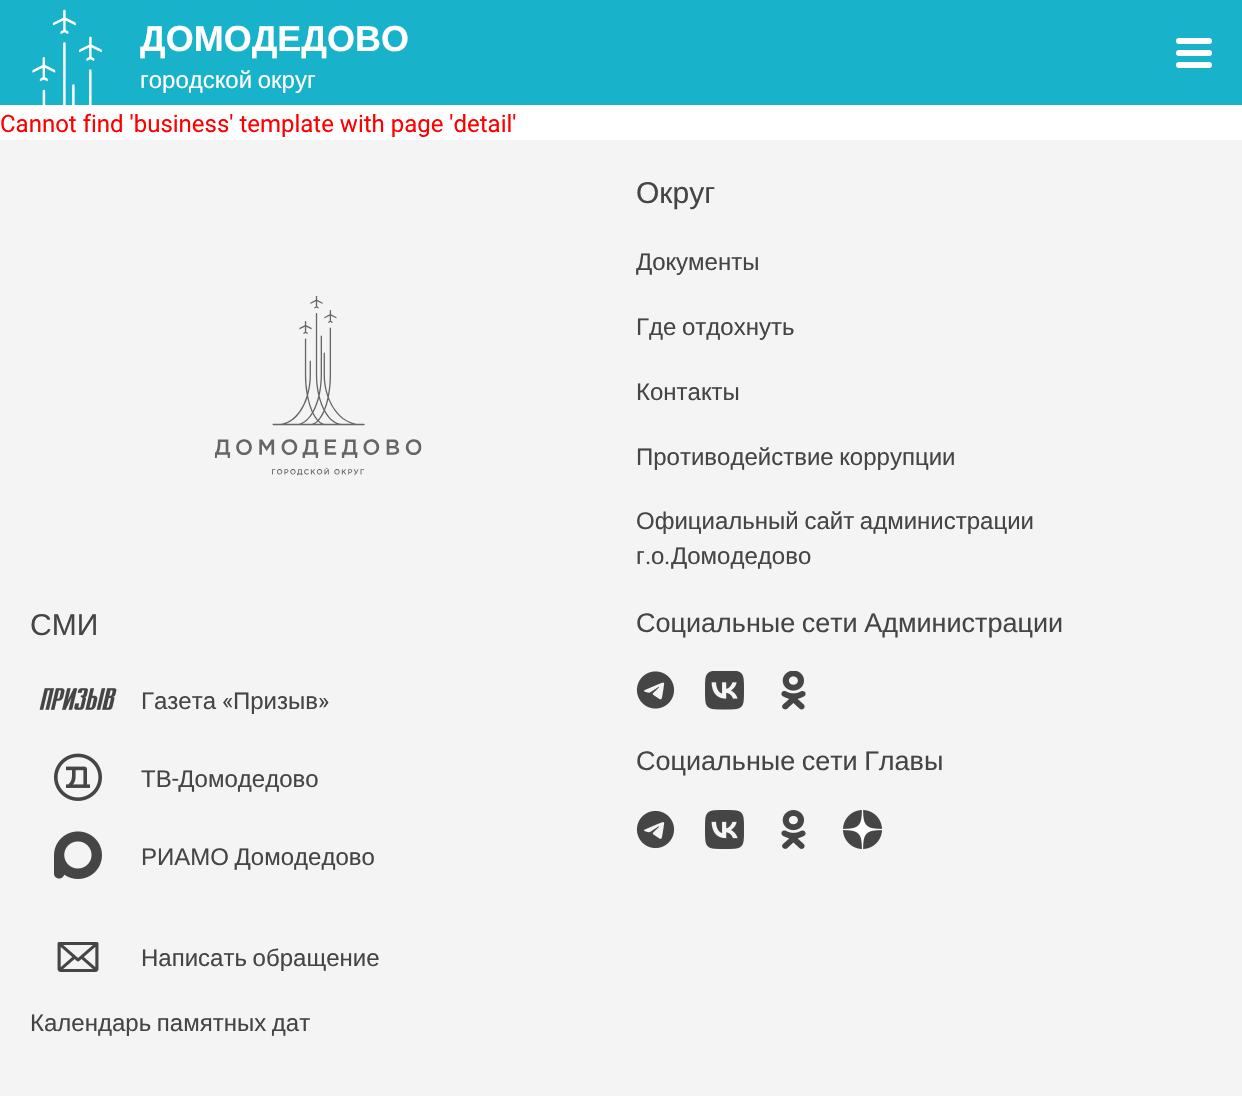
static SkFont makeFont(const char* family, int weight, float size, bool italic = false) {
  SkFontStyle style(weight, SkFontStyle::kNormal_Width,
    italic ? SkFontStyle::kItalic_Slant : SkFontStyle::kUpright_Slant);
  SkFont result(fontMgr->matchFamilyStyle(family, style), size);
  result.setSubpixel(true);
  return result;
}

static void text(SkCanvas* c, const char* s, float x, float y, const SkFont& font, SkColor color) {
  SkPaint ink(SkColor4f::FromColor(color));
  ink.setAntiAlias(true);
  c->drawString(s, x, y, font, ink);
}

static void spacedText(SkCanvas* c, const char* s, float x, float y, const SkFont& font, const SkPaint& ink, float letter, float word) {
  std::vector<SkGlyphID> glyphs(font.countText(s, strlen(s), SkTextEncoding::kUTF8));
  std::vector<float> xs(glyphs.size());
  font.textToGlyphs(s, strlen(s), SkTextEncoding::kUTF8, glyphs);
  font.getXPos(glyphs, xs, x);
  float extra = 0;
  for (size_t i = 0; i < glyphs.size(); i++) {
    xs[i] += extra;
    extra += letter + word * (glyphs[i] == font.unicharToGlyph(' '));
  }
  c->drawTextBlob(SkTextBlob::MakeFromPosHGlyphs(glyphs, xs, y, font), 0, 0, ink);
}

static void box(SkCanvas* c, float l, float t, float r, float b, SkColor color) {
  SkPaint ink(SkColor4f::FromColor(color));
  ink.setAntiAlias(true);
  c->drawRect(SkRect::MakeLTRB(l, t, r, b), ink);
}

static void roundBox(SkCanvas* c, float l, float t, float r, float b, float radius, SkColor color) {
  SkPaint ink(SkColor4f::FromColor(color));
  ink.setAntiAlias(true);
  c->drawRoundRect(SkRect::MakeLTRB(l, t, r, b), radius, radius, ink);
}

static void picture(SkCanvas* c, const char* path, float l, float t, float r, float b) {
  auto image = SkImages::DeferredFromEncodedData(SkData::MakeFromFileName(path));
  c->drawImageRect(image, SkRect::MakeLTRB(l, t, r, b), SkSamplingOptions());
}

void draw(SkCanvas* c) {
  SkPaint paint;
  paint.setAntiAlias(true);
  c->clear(0xffffffff);
  box(c, 0, 0, 1242, 105, 0xff18b2ca);
  picture(c, "img_01.png", 32, 9, 102, 105);
  SkFont face1 = makeFont("Liberation Sans", 700, 36);
  text(c, "ДОМОДЕДОВО", 140, 51, face1, 0xffffffff);
  SkFont face2 = makeFont("Liberation Sans", 400, 24);
  paint.setColor(0xffffffff);
  spacedText(c, "городской округ", 140, 88, face2, paint, 0, -1);
  roundBox(c, 1176, 50, 1212, 56, 3, 0xffffffff);
  roundBox(c, 1176, 38, 1212, 44, 3, 0xffffffff);
  roundBox(c, 1176, 62, 1212, 68, 3, 0xffffffff);
  SkFont face3 = makeFont("Roboto", 400, 24);
  text(c, "Cannot find 'business' template with page 'detail'", 0, 132, face3, 0xffff0000);
  box(c, 0, 140, 1242, 1096, 0xfff4f4f4);
  picture(c, "img_02.png", 215, 296, 422, 476);
  SkFont face4 = makeFont("Liberation Sans", 400, 30);
  text(c, "Округ", 636, 203, face4, 0xff454545);
  text(c, "Документы", 636, 270, face2, 0xff454545);
  paint.setColor(0xff454545);
  spacedText(c, "Где отдохнуть", 636, 335, face2, paint, 0, -1);
  text(c, "Контакты", 636, 400, face2, 0xff454545);
  spacedText(c, "Противодействие коррупции", 636, 465, face2, paint, 0, -1);
  spacedText(c, "Официальный сайт администрации", 636, 529, face2, paint, 0, -1);
  text(c, "г", 636, 564, face2, 0xff454545);
  text(c, ".", 645, 564, face3, 0xff454545);
  text(c, "о", 651, 564, face2, 0xff454545);
  text(c, ".", 664, 564, face3, 0xff454545);
  text(c, "Домодедово", 671, 564, face2, 0xff454545);
  text(c, "СМИ", 30, 635, face4, 0xff454545);
  picture(c, "img_03.png", 39, 688, 117, 710);
  text(c, "Газета", 141, 709, face2, 0xff454545);
  text(c, "«", 222, 709, face3, 0xff454545);
  text(c, "Призыв", 233, 709, face2, 0xff454545);
  text(c, "»", 318, 709, face3, 0xff454545);
  picture(c, "img_04.png", 54, 753, 102, 801);
  text(c, "ТВ Домодедово", 141, 787, face2, 0xff454545);
  text(c, "-", 172, 787, face3, 0xff454545);
  picture(c, "img_05.png", 54, 831, 102, 879);
  spacedText(c, "РИАМО Домодедово", 141, 865, face2, paint, 0, -1);
  picture(c, "img_06.png", 57, 942, 99, 972);
  spacedText(c, "Написать обращение", 141, 966, face2, paint, 0, -1);
  spacedText(c, "Календарь памятных дат", 30, 1031, face2, paint, 0, -1);
  SkFont face5 = makeFont("Liberation Sans", 400, 27);
  spacedText(c, "Социальные сети Администрации", 636, 632, face5, paint, 0, -1);
  picture(c, "img_07.png", 636, 671, 675, 709);
  picture(c, "img_08.png", 705, 671, 744, 710);
  picture(c, "img_09.png", 781, 671, 806, 710);
  spacedText(c, "Социальные сети Главы", 636, 770, face5, paint, 0, -1);
  picture(c, "img_10.png", 636, 810, 675, 849);
  picture(c, "img_11.png", 705, 810, 744, 849);
  picture(c, "img_12.png", 781, 810, 806, 849);
  picture(c, "img_13.png", 843, 810, 882, 849);
}
